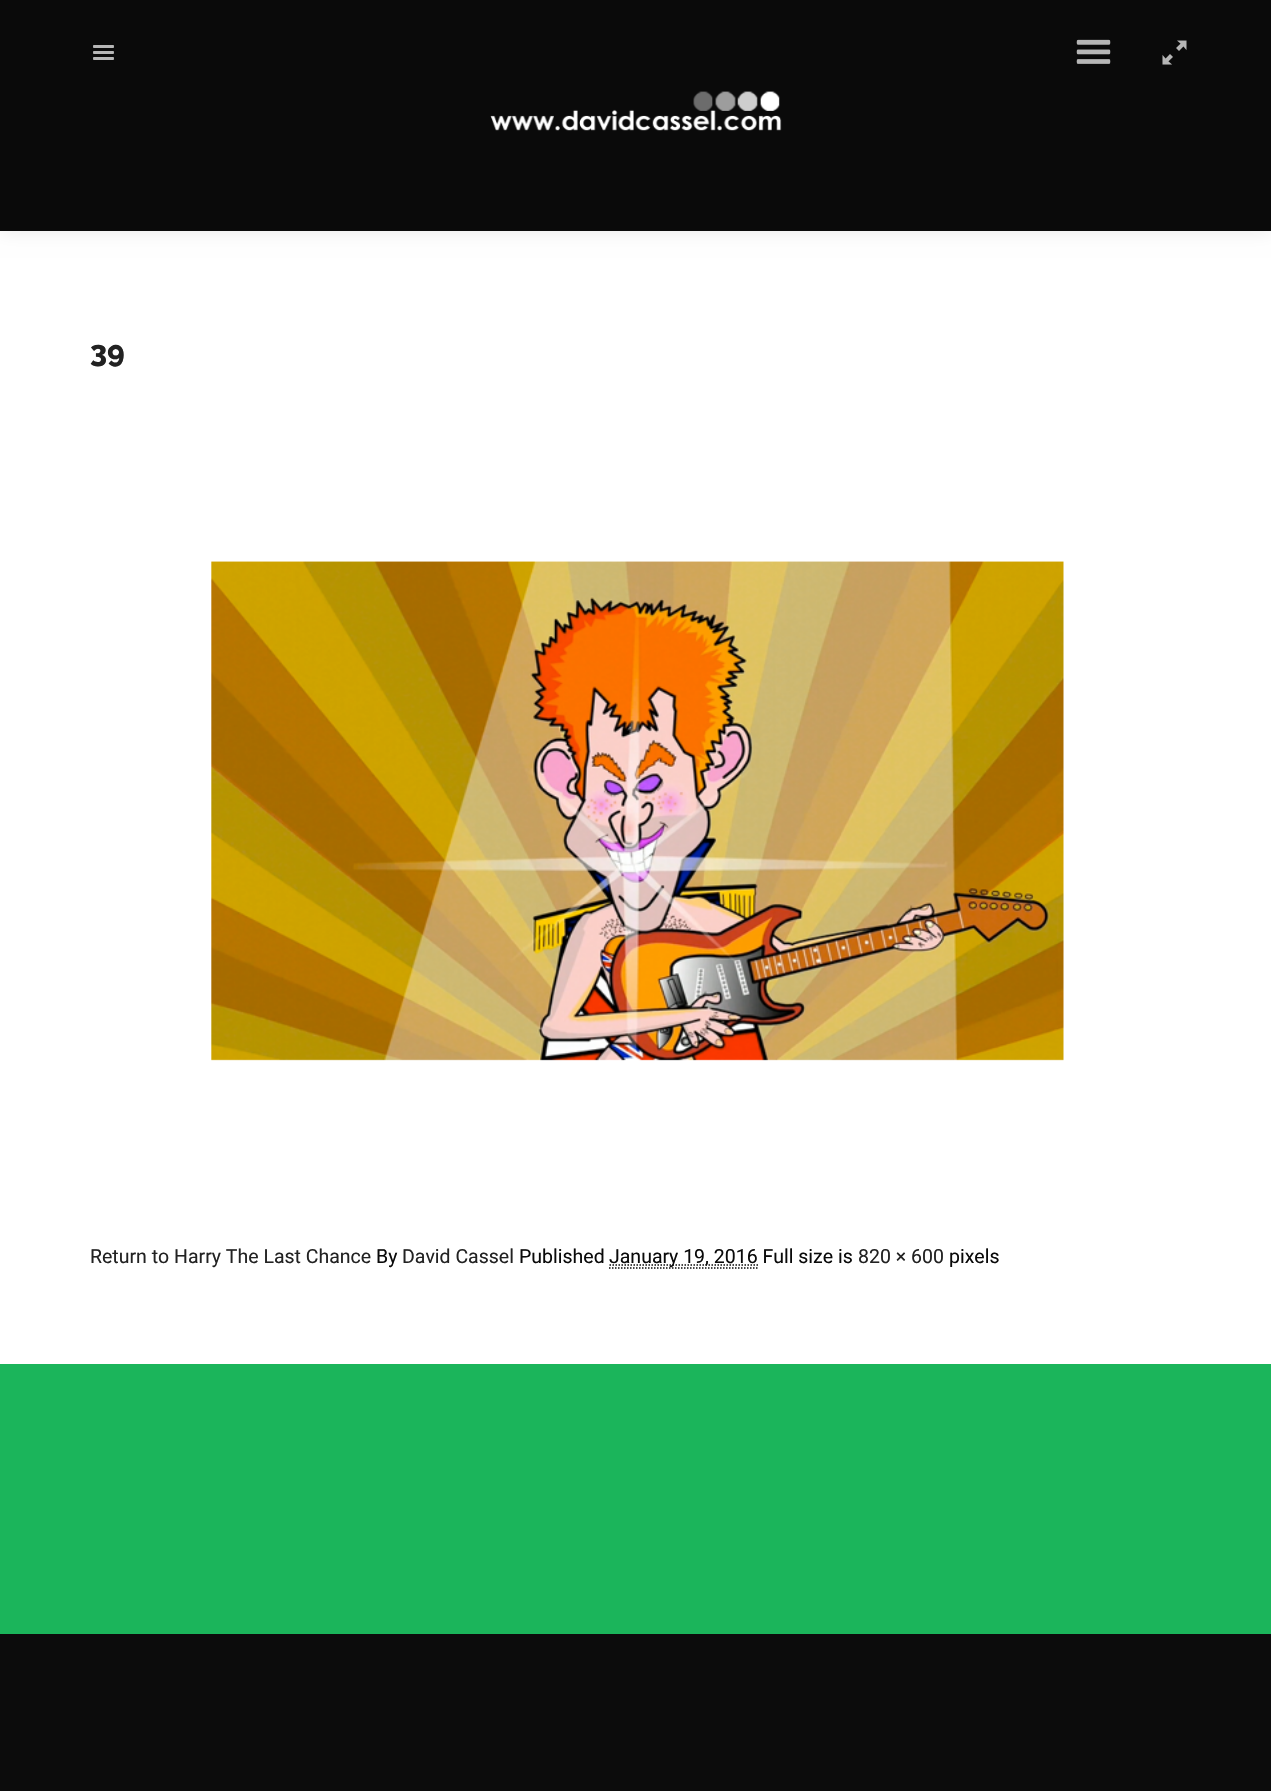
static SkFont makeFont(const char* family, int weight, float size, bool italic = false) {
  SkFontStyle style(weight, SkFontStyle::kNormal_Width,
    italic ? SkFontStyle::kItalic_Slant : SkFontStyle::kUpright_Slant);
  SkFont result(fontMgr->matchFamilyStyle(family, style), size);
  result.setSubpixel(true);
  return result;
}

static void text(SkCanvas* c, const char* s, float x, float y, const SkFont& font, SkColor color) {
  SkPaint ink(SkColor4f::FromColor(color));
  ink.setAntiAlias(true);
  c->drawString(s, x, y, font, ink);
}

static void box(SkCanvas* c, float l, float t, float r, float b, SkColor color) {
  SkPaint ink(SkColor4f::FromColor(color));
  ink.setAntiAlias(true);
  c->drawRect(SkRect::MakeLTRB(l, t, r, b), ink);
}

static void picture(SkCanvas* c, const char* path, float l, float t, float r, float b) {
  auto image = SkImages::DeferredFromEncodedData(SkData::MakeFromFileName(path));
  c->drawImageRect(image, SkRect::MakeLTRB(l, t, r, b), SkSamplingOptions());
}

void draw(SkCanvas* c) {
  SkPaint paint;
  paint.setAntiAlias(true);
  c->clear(0xff1bb55b);
  box(c, 0, 231, 1271, 1364, 0xffffffff);
  paint.setColor(0x17000000);
  paint.setMaskFilter(SkMaskFilter::MakeBlur(kNormal_SkBlurStyle, 9));
  c->drawRect(SkRect::MakeLTRB(0, 0, 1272, 231), paint);
  paint.setMaskFilter(nullptr);
  box(c, 0, 0, 1271, 231, 0xff0a0a0a);
  picture(c, "img_01.png", 490, 91, 782, 131);
  picture(c, "img_02.png", 93, 45, 114, 60);
  picture(c, "img_03.png", 1076, 39, 1111, 64);
  picture(c, "img_04.png", 1162, 40, 1187, 65);
  SkFont face1 = makeFont("Raleway", 800, 30);
  text(c, "39", 90, 362, face1, 0xff222222);
  picture(c, "img_05.png", 211, 561, 1064, 1061);
  SkFont face2 = makeFont("Roboto", 400, 19.5f);
  text(c, "Return to Harry The Last Chance", 90, 1263, face2, 0xff222222);
  text(c, "By", 376, 1263, face2, 0xff0a0a0a);
  text(c, "David Cassel", 402, 1263, face2, 0xff222222);
  text(c, "Published", 519, 1263, face2, 0xff0a0a0a);
  paint.setStyle(SkPaint::kStroke_Style);
  paint.setStrokeWidth(1.5f);
  paint.setColor(0xff0a0a0a);
  paint.setPathEffect(SkDashPathEffect::Make({{1.5f, 1.5f}}, 0));
  c->drawPath(SkPathBuilder().moveTo(609, 1268).lineTo(757.5f, 1268).detach(), paint);
  paint.setPathEffect(nullptr);
  paint.setPathEffect(SkDashPathEffect::Make({{1.5f, 1.5f}}, 0));
  c->drawPath(SkPathBuilder().moveTo(609.5f, 1265).lineTo(758, 1265).detach(), paint);
  paint.setPathEffect(nullptr);
  text(c, "January 19, 2016 Full size is", 609, 1263, face2, 0xff0a0a0a);
  text(c, "820 × 600", 858, 1263, face2, 0xff222222);
  text(c, "pixels", 949, 1263, face2, 0xff0a0a0a);
  box(c, 0, 1634, 1271, 1791, 0xff0c0c0c);
}
